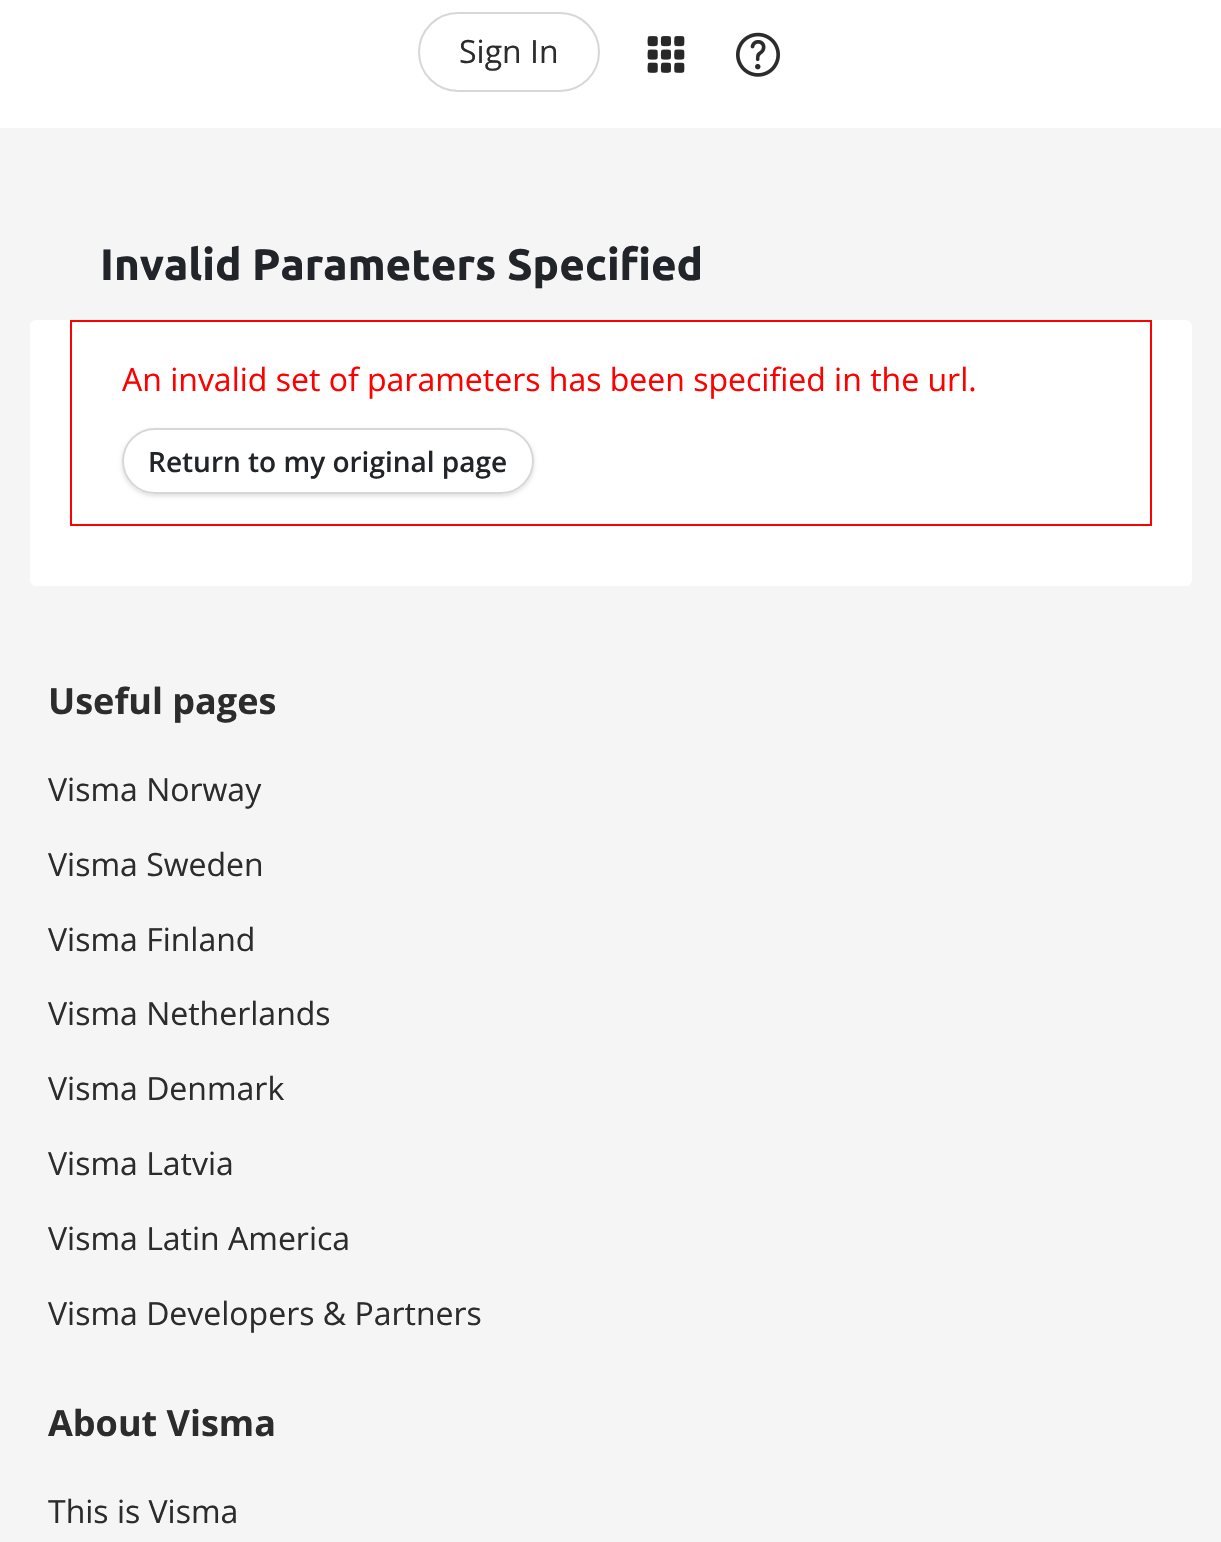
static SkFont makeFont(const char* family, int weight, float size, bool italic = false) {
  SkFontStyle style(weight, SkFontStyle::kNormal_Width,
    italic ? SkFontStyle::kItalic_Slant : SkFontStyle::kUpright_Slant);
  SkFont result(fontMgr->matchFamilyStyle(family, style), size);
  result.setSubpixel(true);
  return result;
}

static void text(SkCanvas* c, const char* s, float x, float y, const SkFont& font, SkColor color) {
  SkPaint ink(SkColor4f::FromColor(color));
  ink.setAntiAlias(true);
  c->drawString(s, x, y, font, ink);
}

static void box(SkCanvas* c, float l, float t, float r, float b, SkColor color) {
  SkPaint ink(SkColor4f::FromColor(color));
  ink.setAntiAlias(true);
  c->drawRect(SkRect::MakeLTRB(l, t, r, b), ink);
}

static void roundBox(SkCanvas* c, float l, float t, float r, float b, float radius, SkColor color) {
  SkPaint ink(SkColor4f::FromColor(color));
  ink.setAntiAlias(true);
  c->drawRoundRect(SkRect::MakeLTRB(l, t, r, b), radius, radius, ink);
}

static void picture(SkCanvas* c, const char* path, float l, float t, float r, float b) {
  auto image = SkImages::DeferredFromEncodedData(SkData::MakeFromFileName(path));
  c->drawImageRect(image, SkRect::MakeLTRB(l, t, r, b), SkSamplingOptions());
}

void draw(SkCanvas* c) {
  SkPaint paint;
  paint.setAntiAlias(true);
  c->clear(0xfff5f5f5);
  box(c, 0, 0, 1221, 128, 0xffffffff);
  paint.setStyle(SkPaint::kStroke_Style);
  paint.setStrokeWidth(2);
  paint.setColor(0xffd7d7d7);
  c->drawRoundRect(SkRect::MakeLTRB(419, 13, 599, 91), 39, 39, paint);
  SkFont face1 = makeFont("Open Sans", 400, 32);
  text(c, "Sign In", 459, 63, face1, 0xff2c2c2c);
  picture(c, "img_01.png", 647, 36, 685, 73);
  picture(c, "img_02.png", 736, 32, 780, 77);
  SkFont face2 = makeFont("Ubuntu", 700, 44);
  text(c, "Invalid Parameters Specified", 100, 280, face2, 0xff212529);
  roundBox(c, 30, 320, 1192, 586, 6, 0xffffffff);
  paint.setColor(0xffff0000);
  c->drawRect(SkRect::MakeLTRB(71, 321, 1151, 525), paint);
  text(c, "An invalid set of parameters has been specified in the url.", 122, 391, face1, 0xffff0000);
  c->save();
  c->clipPath(SkPathBuilder(SkPathFillType::kEvenOdd).moveTo(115, 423).lineTo(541, 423).lineTo(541, 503).lineTo(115, 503).close().moveTo(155, 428).lineTo(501, 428).cubicTo(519, 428, 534, 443, 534, 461).cubicTo(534, 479, 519, 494, 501, 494).lineTo(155, 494).cubicTo(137, 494, 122, 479, 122, 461).cubicTo(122, 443, 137, 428, 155, 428).close().detach(), true);
  paint.setStyle(SkPaint::kFill_Style);
  paint.setColor(0xffdedede);
  paint.setMaskFilter(SkMaskFilter::MakeBlur(kNormal_SkBlurStyle, 2));
  c->drawRoundRect(SkRect::MakeLTRB(122, 430, 534, 496), 33, 33, paint);
  paint.setMaskFilter(nullptr);
  c->restore();
  paint.setStyle(SkPaint::kStroke_Style);
  paint.setColor(0xffd7d7d7);
  c->drawRoundRect(SkRect::MakeLTRB(123, 429, 533, 493), 32, 32, paint);
  SkFont face3 = makeFont("Open Sans", 600, 28);
  text(c, "Return to my original page", 148, 472, face3, 0xff212529);
  SkFont face4 = makeFont("Open Sans", 700, 36);
  text(c, "Useful pages", 48, 714, face4, 0xff2c2c2c);
  text(c, "Visma Norway", 48, 801, face1, 0xff2c2c2c);
  text(c, "Visma Sweden", 48, 876, face1, 0xff2c2c2c);
  text(c, "Visma Finland", 48, 951, face1, 0xff2c2c2c);
  text(c, "Visma Netherlands", 48, 1025, face1, 0xff2c2c2c);
  text(c, "Visma Denmark", 48, 1100, face1, 0xff2c2c2c);
  text(c, "Visma Latvia", 48, 1175, face1, 0xff2c2c2c);
  text(c, "Visma Latin America", 48, 1250, face1, 0xff2c2c2c);
  text(c, "Visma Developers & Partners", 48, 1325, face1, 0xff2c2c2c);
  text(c, "About Visma", 48, 1436, face4, 0xff2c2c2c);
  text(c, "This is Visma", 48, 1523, face1, 0xff2c2c2c);
}
